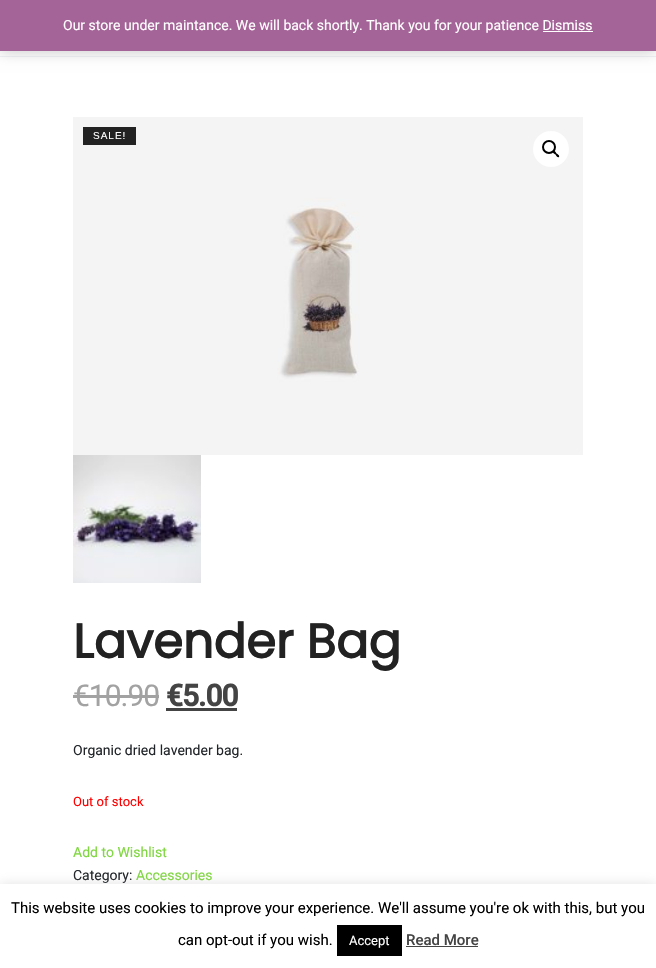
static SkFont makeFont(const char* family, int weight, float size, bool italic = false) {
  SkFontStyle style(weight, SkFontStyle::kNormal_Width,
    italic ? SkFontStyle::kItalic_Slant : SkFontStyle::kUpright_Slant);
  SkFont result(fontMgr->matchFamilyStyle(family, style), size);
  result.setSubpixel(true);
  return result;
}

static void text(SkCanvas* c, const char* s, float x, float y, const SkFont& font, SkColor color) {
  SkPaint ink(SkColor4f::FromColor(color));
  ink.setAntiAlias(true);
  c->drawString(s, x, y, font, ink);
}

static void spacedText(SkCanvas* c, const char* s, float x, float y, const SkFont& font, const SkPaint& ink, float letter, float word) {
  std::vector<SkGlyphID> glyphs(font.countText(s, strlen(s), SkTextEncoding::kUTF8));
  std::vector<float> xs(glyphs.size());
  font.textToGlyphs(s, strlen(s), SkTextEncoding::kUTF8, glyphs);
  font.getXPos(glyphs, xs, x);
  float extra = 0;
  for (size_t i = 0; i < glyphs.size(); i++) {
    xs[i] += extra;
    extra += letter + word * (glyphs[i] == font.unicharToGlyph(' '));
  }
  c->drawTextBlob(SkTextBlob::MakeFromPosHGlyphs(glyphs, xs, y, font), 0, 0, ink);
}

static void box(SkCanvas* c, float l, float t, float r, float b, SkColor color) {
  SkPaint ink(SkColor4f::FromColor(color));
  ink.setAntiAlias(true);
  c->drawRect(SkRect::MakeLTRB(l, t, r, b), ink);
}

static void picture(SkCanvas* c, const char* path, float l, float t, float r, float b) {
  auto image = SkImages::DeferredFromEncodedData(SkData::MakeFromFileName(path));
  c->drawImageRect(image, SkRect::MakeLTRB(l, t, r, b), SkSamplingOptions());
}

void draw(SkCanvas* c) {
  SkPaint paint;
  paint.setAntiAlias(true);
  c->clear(0xffffffff);
  box(c, 0, 56, 656, 57, 0xfff0f2f7);
  paint.setColor(0x33000000);
  paint.setMaskFilter(SkMaskFilter::MakeBlur(kNormal_SkBlurStyle, 7));
  c->drawRect(SkRect::MakeLTRB(0, 1, 656, 52), paint);
  paint.setMaskFilter(nullptr);
  box(c, 0, 0, 656, 51, 0xffa46497);
  SkFont face1 = makeFont("Roboto", 400, 14);
  text(c, "Our store under maintance. We will back shortly. Thank you for your patience Dismiss", 63, 30, face1, 0xffffffff);
  box(c, 543, 31, 593, 32, 0xffffffff);
  picture(c, "img_01.png", 73, 117, 583, 455);
  picture(c, "img_02.png", 73, 455, 201, 583);
  paint.setColor(0xffffffff);
  c->drawCircle(551, 149, 18, paint);
  paint.setStyle(SkPaint::kStroke_Style);
  paint.setStrokeWidth(2);
  paint.setColor(0xff000000);
  c->drawCircle(549, 147, 6, paint);
  paint.setStyle(SkPaint::kFill_Style);
  c->drawPath(SkPathBuilder().moveTo(553, 151).cubicTo(554.5f, 150, 556, 152.5f, 556.5f, 153.5f).cubicTo(557.5f, 154, 560, 155.5f, 559, 157).cubicTo(557.5f, 158, 556, 155.5f, 555.5f, 154.5f).cubicTo(554.5f, 154, 552, 152.5f, 553, 151).close().detach(), paint);
  box(c, 83, 127, 136, 145, 0xff222222);
  SkFont face2 = makeFont("Liberation Sans", 400, 10);
  paint.setColor(0xffffffff);
  spacedText(c, "SALE!", 93, 139, face2, paint, 1, 0);
  SkFont face3 = makeFont("Poppins", 700, 48);
  text(c, "Lavender Bag", 73, 658, face3, 0xff222222);
  SkFont face4 = makeFont("Roboto", 400, 30);
  paint.setColor(0xffa2a2a2);
  spacedText(c, "€10.90", 73, 706, face4, paint, -1, 0);
  box(c, 73, 695, 159, 698, 0xffa2a2a2);
  SkFont face5 = makeFont("Roboto", 700, 30);
  paint.setColor(0xff444444);
  spacedText(c, "€5.00", 166, 706, face5, paint, -1, 0);
  box(c, 166, 708, 237, 711, 0xff444444);
  text(c, "Organic dried lavender bag.", 73, 755, face1, 0xff212529);
  SkFont face6 = makeFont("Roboto", 400, 13);
  text(c, "Out of stock", 73, 806, face6, 0xffff0000);
  text(c, "Add to Wishlist", 73, 857, face1, 0xff81d742);
  text(c, "Category:", 73, 880, face1, 0xff212529);
  text(c, "Accessories", 136, 880, face1, 0xff81d742);
  paint.setColor(0x4dacabab);
  paint.setMaskFilter(SkMaskFilter::MakeBlur(kNormal_SkBlurStyle, 5));
  c->drawRect(SkRect::MakeLTRB(0, 883, 656, 967), paint);
  paint.setMaskFilter(nullptr);
  box(c, 0, 884, 656, 968, 0xffffffff);
  SkFont face7 = makeFont("Roboto", 400, 15);
  text(c, "This website uses cookies to improve your experience. We'll assume you're ok with this, but you", 11, 913, face7, 0xff000000);
  text(c, "can opt-out if you wish.", 178, 945, face7, 0xff000000);
  box(c, 337, 925, 402, 956, 0xff000000);
  text(c, "Accept", 349, 945, face6, 0xffffffff);
  SkFont face8 = makeFont("Roboto", 500, 15);
  text(c, "Read More", 406, 945, face8, 0xff444444);
  box(c, 406, 946, 478, 947, 0xff444444);
}
